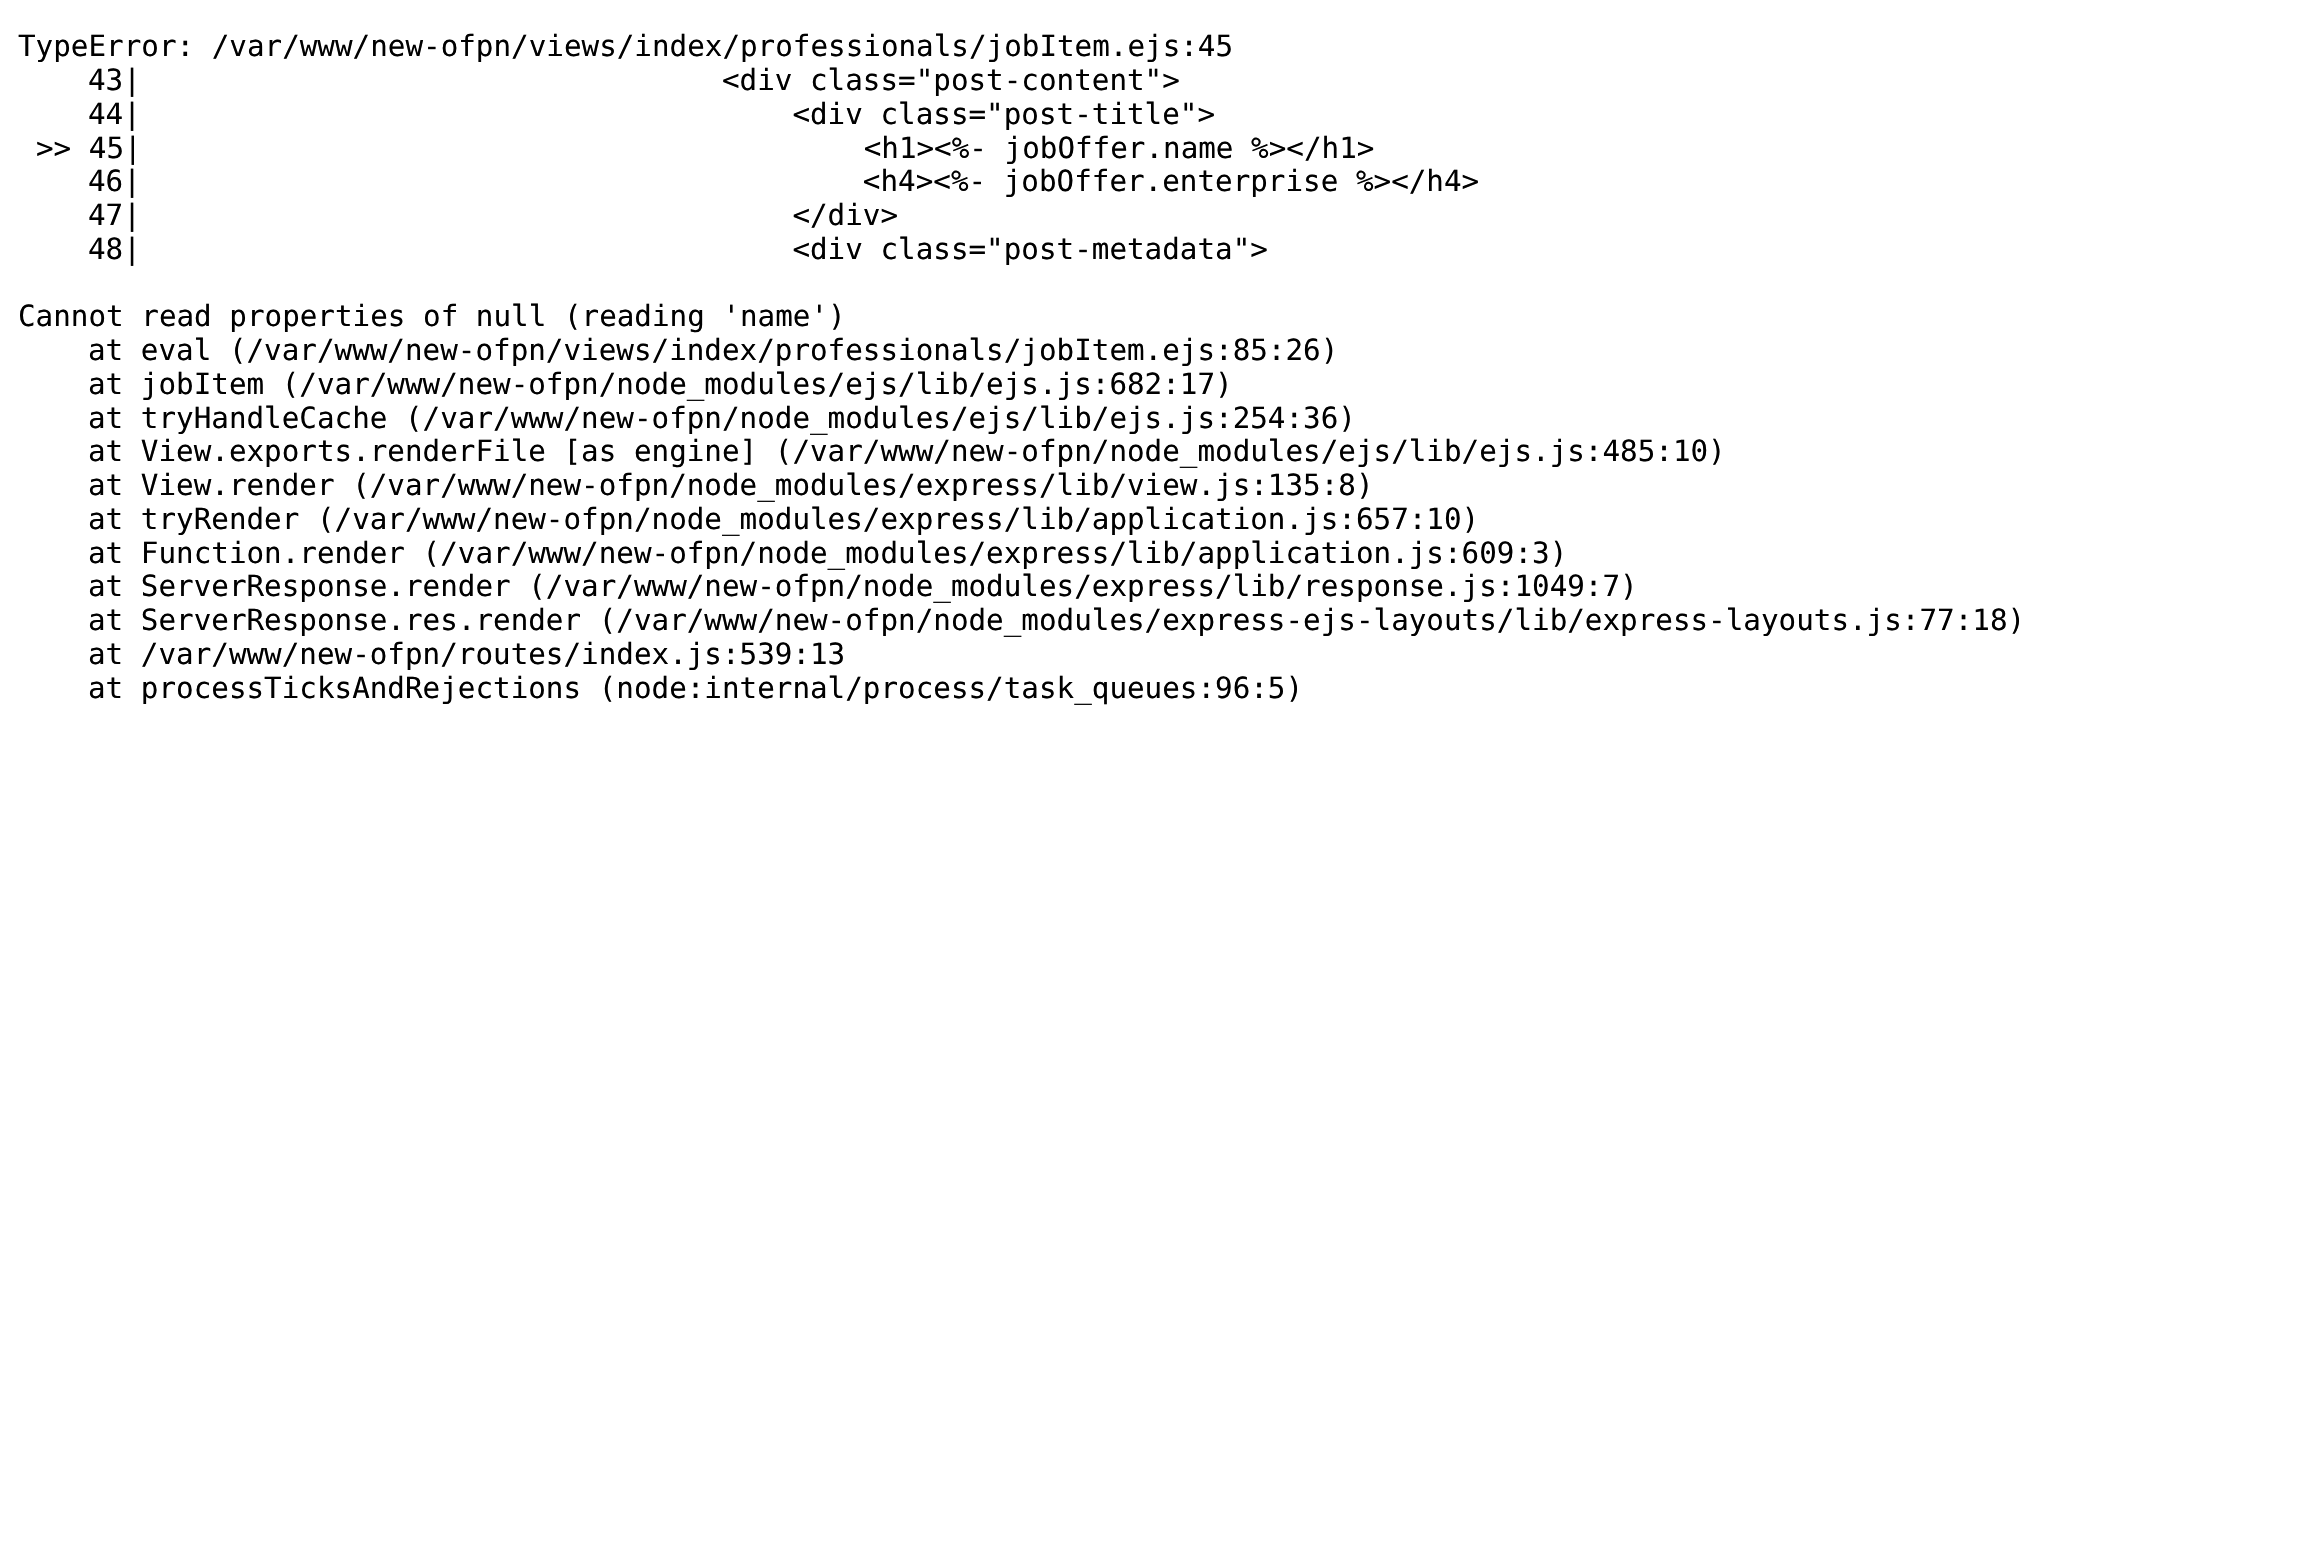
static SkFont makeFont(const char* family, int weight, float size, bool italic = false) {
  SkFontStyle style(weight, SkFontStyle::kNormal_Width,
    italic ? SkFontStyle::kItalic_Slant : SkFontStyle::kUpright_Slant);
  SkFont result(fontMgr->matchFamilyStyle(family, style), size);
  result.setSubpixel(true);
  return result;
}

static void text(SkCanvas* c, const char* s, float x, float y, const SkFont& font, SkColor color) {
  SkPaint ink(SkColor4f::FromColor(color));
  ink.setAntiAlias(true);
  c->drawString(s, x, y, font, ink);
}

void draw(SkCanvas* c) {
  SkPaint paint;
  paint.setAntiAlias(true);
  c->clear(0xffffffff);
  SkFont face1 = makeFont("DejaVu Sans Mono", 400, 29.25f);
  text(c, "TypeError: /var/www/new-ofpn/views/index/professionals/jobItem.ejs:45", 18, 56, face1, 0xff000000);
  text(c, "43|                                 <div class=\"post-content\">", 88, 90, face1, 0xff000000);
  text(c, "44|                                     <div class=\"post-title\">", 88, 124, face1, 0xff000000);
  text(c, ">> 45|                                         <h1><%- jobOffer.name %></h1>", 36, 158, face1, 0xff000000);
  text(c, "46|                                         <h4><%- jobOffer.enterprise %></h4>", 88, 191, face1, 0xff000000);
  text(c, "47|                                     </div>", 88, 225, face1, 0xff000000);
  text(c, "48|                                     <div class=\"post-metadata\">", 88, 259, face1, 0xff000000);
  text(c, "Cannot read properties of null (reading 'name')", 18, 326, face1, 0xff000000);
  text(c, "at eval (/var/www/new-ofpn/views/index/professionals/jobItem.ejs:85:26)", 88, 360, face1, 0xff000000);
  text(c, "at jobItem (/var/www/new-ofpn/node_modules/ejs/lib/ejs.js:682:17)", 88, 394, face1, 0xff000000);
  text(c, "at tryHandleCache (/var/www/new-ofpn/node_modules/ejs/lib/ejs.js:254:36)", 88, 428, face1, 0xff000000);
  text(c, "at View.exports.renderFile [as engine] (/var/www/new-ofpn/node_modules/ejs/lib/ejs.js:485:10)", 88, 461, face1, 0xff000000);
  text(c, "at View.render (/var/www/new-ofpn/node_modules/express/lib/view.js:135:8)", 88, 495, face1, 0xff000000);
  text(c, "at tryRender (/var/www/new-ofpn/node_modules/express/lib/application.js:657:10)", 88, 529, face1, 0xff000000);
  text(c, "at Function.render (/var/www/new-ofpn/node_modules/express/lib/application.js:609:3)", 88, 563, face1, 0xff000000);
  text(c, "at ServerResponse.render (/var/www/new-ofpn/node_modules/express/lib/response.js:1049:7)", 88, 596, face1, 0xff000000);
  text(c, "at ServerResponse.res.render (/var/www/new-ofpn/node_modules/express-ejs-layouts/lib/express-layouts.js:77:18)", 88, 630, face1, 0xff000000);
  text(c, "at /var/www/new-ofpn/routes/index.js:539:13", 88, 664, face1, 0xff000000);
  text(c, "at processTicksAndRejections (node:internal/process/task_queues:96:5)", 88, 698, face1, 0xff000000);
}
